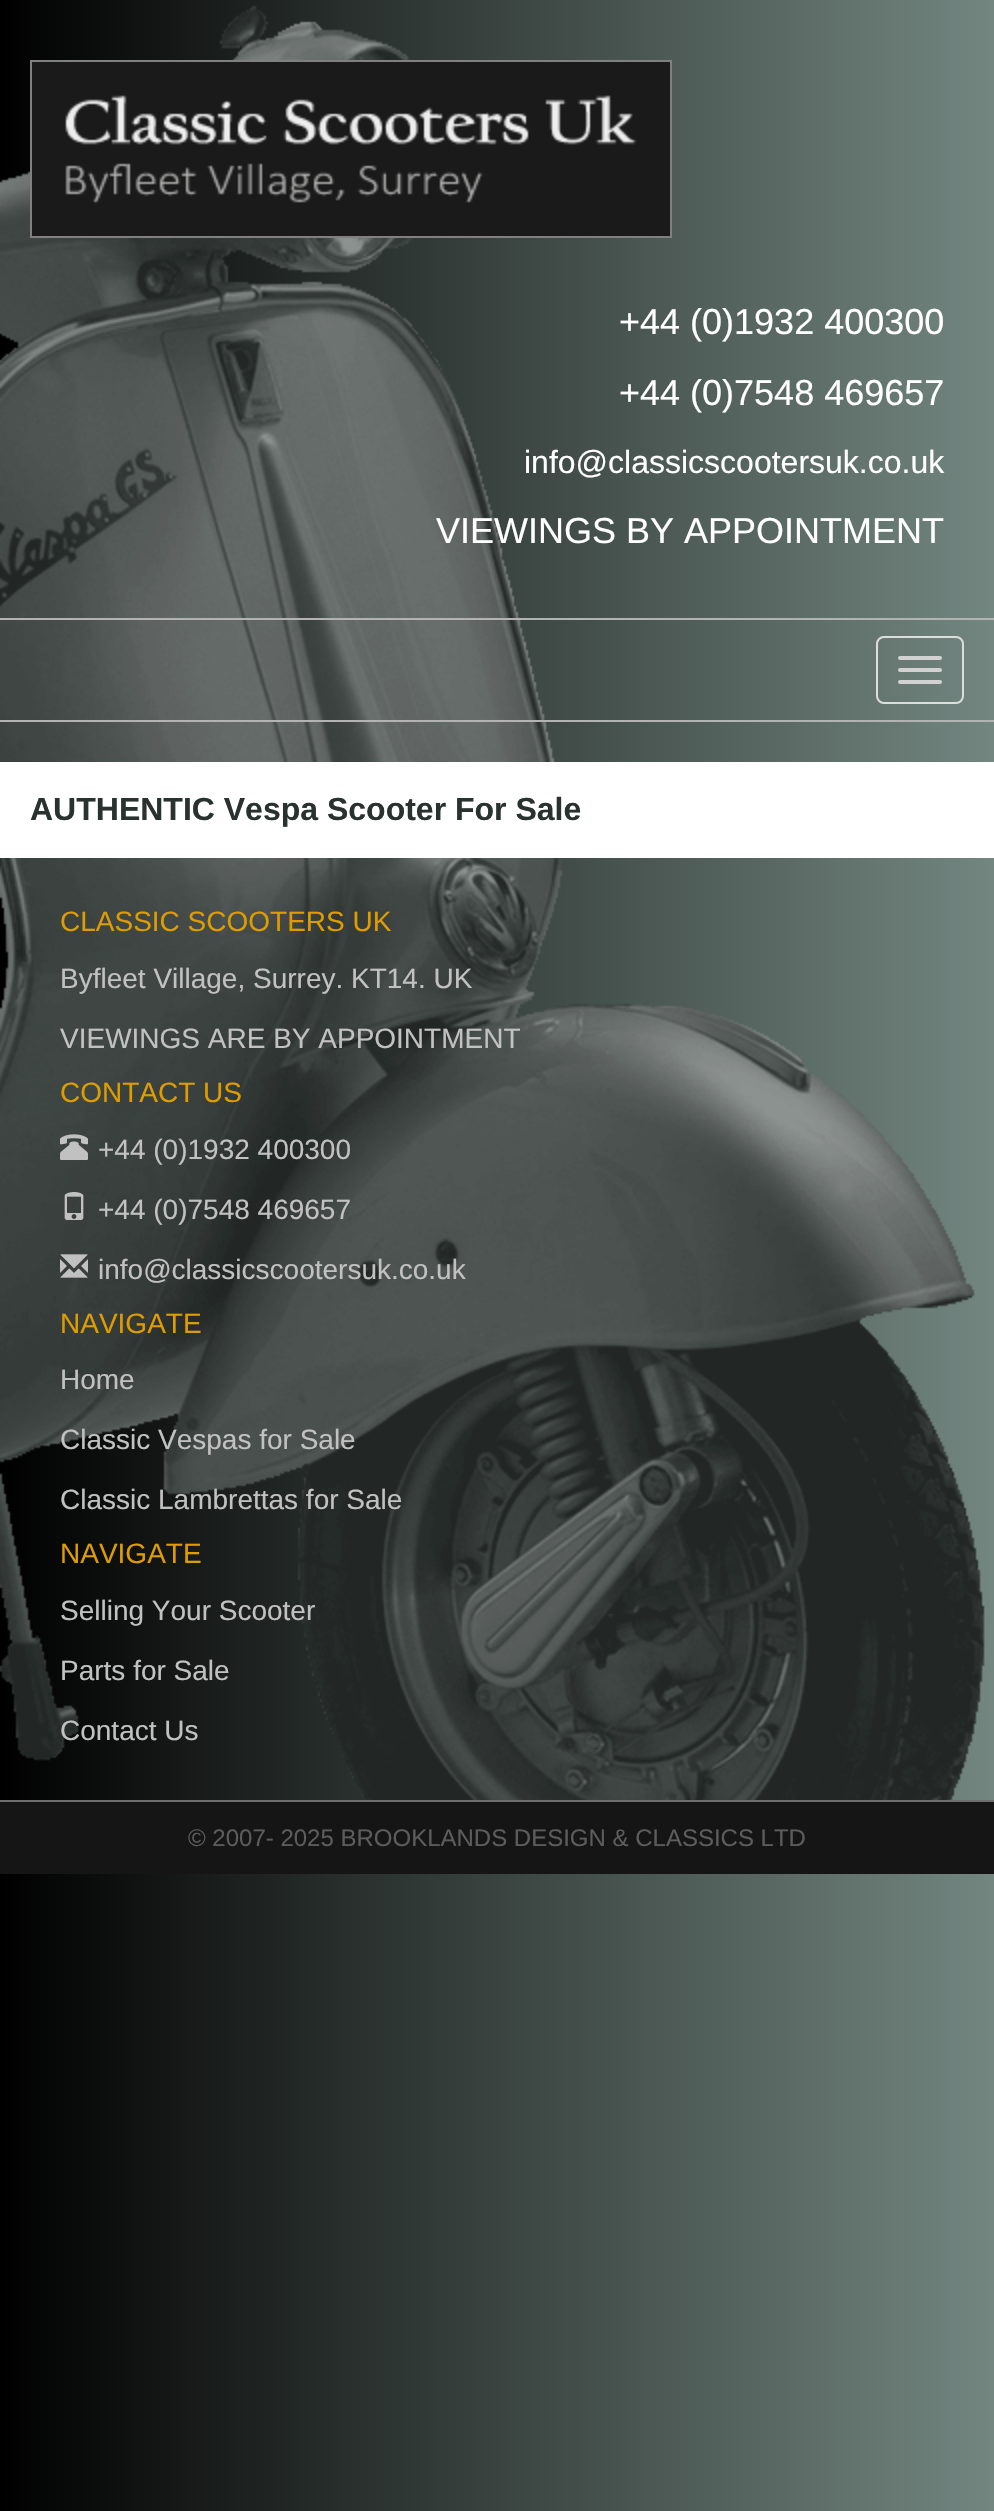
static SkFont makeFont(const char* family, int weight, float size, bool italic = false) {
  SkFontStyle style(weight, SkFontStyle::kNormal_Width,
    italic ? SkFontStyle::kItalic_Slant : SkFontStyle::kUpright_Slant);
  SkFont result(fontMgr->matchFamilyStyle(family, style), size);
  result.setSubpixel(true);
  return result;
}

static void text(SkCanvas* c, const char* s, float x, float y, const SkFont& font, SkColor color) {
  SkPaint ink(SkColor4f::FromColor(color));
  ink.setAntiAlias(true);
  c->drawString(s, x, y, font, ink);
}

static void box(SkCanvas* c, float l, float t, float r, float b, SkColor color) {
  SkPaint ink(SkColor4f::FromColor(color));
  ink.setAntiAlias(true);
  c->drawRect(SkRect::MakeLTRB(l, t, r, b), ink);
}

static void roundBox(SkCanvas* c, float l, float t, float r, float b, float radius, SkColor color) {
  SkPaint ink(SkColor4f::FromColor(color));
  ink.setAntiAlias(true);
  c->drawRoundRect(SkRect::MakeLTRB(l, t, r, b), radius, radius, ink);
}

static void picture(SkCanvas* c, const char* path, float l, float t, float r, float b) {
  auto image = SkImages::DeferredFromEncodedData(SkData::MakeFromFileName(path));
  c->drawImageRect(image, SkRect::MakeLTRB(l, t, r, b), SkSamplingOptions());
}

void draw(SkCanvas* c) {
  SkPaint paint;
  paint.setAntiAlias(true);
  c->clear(0xffffffff);
  {
    const SkColor colors[] = {0xff738680, 0xff000000};
    const float stops[] = {0, 1};
    const SkPoint ends[] = {{994, 360}, {0, 360}};
    paint.setShader(SkGradientShader::MakeLinear(ends, colors, stops, 2, SkTileMode::kClamp));
    paint.setAlpha(255);
  }
  c->drawRect(SkRect::MakeLTRB(0, 0, 994, 2511), paint);
  picture(c, "img_01.png", 0, 5, 985, 1800);
  paint.setStyle(SkPaint::kStroke_Style);
  paint.setStrokeWidth(2);
  paint.setShader(nullptr);
  paint.setColor(0xff808080);
  c->drawRect(SkRect::MakeLTRB(31, 61, 671, 237), paint);
  picture(c, "img_02.png", 32, 62, 670, 236);
  SkFont face1 = makeFont("Liberation Sans", 400, 36);
  text(c, "+44 (0)1932 400300", 619, 334, face1, 0xffffffff);
  text(c, "+44 (0)7548 469657", 619, 405, face1, 0xffffffff);
  SkFont face2 = makeFont("Liberation Sans", 400, 32);
  text(c, "info@classicscootersuk.co.uk", 524, 473, face2, 0xffffffff);
  text(c, "VIEWINGS BY APPOINTMENT", 436, 543, face1, 0xffffffff);
  box(c, 0, 618, 994, 620, 0xffb3b3b3);
  box(c, 0, 720, 994, 722, 0xffb3b3b3);
  paint.setColor(0xffdddddd);
  c->drawRoundRect(SkRect::MakeLTRB(877, 637, 963, 703), 7, 7, paint);
  roundBox(c, 898, 656, 942, 660, 2, 0xffd2d2d2);
  roundBox(c, 898, 668, 942, 672, 2, 0xffd2d2d2);
  roundBox(c, 898, 680, 942, 684, 2, 0xffd2d2d2);
  box(c, 0, 762, 994, 858, 0xffffffff);
  SkFont face3 = makeFont("Liberation Sans", 700, 32);
  text(c, "AUTHENTIC Vespa Scooter For Sale", 30, 820, face3, 0xff2a3230);
  SkFont face4 = makeFont("Liberation Sans", 400, 28);
  text(c, "CLASSIC SCOOTERS UK", 60, 931, face4, 0xffdd9c00);
  text(c, "Byfleet Village, Surrey. KT14. UK", 60, 988, face4, 0xffc1c1c1);
  text(c, "VIEWINGS ARE BY APPOINTMENT", 60, 1048, face4, 0xffc1c1c1);
  text(c, "CONTACT US", 60, 1102, face4, 0xffdd9c00);
  picture(c, "img_03.png", 60, 1134, 88, 1160);
  text(c, "+44 (0)1932 400300", 98, 1159, face4, 0xffc1c1c1);
  picture(c, "img_04.png", 64, 1192, 84, 1220);
  text(c, "+44 (0)7548 469657", 98, 1219, face4, 0xffc1c1c1);
  picture(c, "img_05.png", 60, 1254, 88, 1278);
  text(c, "info@classicscootersuk.co.uk", 98, 1279, face4, 0xffc1c1c1);
  text(c, "NAVIGATE", 60, 1333, face4, 0xffdd9c00);
  text(c, "Home", 60, 1389, face4, 0xffc1c1c1);
  text(c, "Classic Vespas for Sale", 60, 1449, face4, 0xffc1c1c1);
  text(c, "Classic Lambrettas for Sale", 60, 1509, face4, 0xffc1c1c1);
  text(c, "NAVIGATE", 60, 1563, face4, 0xffdd9c00);
  text(c, "Selling Your Scooter", 60, 1620, face4, 0xffc1c1c1);
  text(c, "Parts for Sale", 60, 1680, face4, 0xffc1c1c1);
  text(c, "Contact Us", 60, 1740, face4, 0xffc1c1c1);
  box(c, 0, 1802, 994, 1874, 0xff151515);
  box(c, 0, 1800, 994, 1802, 0xff6d6d6d);
  SkFont face5 = makeFont("Liberation Sans", 400, 24);
  text(c, "© 2007- 2025 BROOKLANDS DESIGN & CLASSICS LTD", 188, 1846, face5, 0xff5c5c5c);
}
